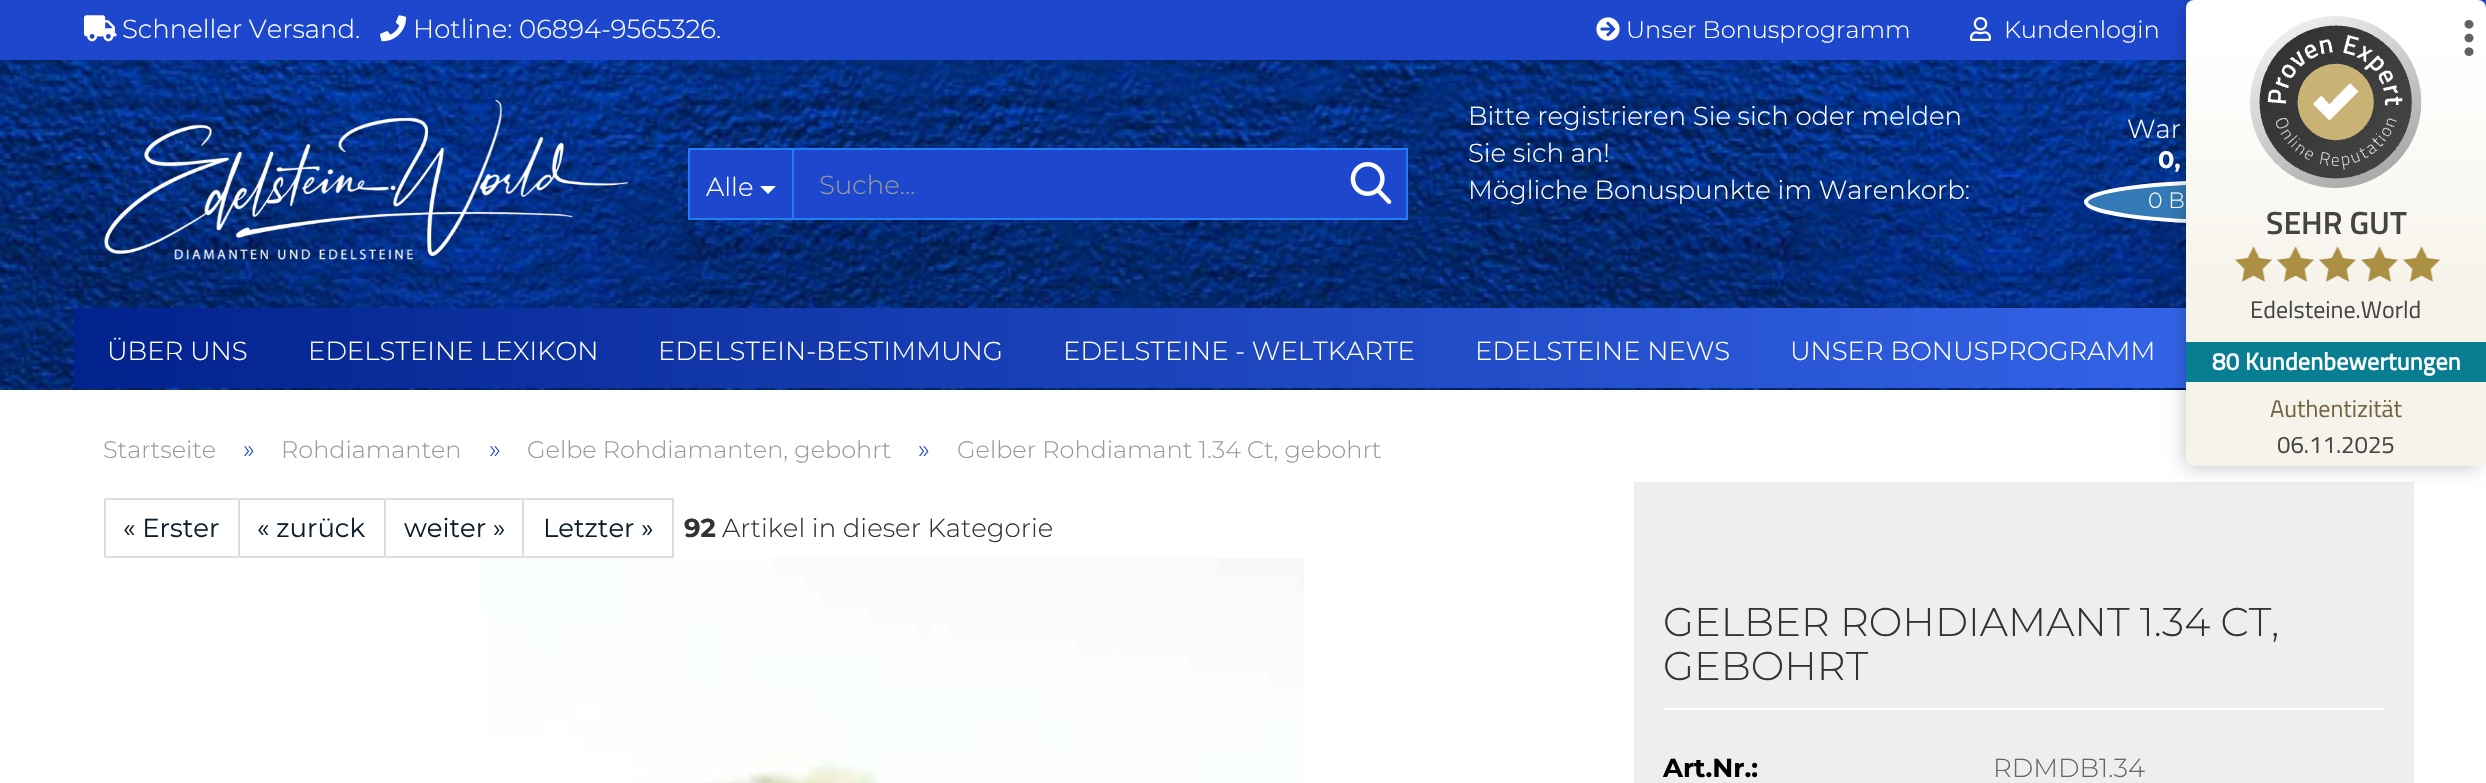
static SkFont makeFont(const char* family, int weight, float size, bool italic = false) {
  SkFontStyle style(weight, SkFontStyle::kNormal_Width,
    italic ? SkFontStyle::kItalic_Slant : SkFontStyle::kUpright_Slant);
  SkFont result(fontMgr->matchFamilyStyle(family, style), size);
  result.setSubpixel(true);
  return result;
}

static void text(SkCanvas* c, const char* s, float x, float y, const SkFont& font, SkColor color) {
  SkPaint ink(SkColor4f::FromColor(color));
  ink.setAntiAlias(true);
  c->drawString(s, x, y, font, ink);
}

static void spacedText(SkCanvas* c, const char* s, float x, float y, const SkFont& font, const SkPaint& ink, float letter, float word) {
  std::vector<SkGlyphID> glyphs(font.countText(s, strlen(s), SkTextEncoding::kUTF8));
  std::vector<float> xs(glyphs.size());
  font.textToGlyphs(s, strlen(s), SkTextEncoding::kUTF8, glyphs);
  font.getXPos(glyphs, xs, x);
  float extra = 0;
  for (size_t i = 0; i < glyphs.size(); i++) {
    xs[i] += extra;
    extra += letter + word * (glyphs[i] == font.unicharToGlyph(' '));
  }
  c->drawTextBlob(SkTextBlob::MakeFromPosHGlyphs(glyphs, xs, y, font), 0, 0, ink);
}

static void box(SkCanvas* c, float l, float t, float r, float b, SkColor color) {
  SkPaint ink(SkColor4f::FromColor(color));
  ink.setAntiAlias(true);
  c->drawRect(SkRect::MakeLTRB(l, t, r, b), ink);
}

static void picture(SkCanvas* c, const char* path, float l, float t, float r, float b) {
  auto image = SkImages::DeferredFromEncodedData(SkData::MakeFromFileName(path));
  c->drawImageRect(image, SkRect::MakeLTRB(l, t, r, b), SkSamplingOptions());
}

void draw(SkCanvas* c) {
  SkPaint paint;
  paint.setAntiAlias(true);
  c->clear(0xffffffff);
  picture(c, "img_01.png", 0, 60, 2186, 390);
  box(c, 0, 0, 2486, 60, 0xff1d47cd);
  picture(c, "img_02.png", 84, 15, 117, 42);
  SkFont face1 = makeFont("Montserrat", 100, 26);
  text(c, "Schneller Versand.", 122, 38, face1, 0xffffffff);
  picture(c, "img_03.png", 380, 15, 406, 42);
  text(c, "Hotline: 06894-9565326.", 413, 38, face1, 0xffffffff);
  picture(c, "img_04.png", 104, 99, 628, 260);
  box(c, 690, 150, 792, 218, 0xff1d47cd);
  box(c, 688, 148, 792, 150, 0xff247df6);
  box(c, 688, 218, 792, 220, 0xff247df6);
  box(c, 688, 148, 690, 220, 0xff247df6);
  text(c, "Alle", 706, 196, face1, 0xffffffff);
  paint.setColor(0xffffffff);
  c->drawPath(SkPathBuilder().moveTo(760, 186).lineTo(776, 186).lineTo(768, 194).close().detach(), paint);
  paint.setColor(0xff1d47cd);
  c->drawRect(SkRect::MakeLTRB(793, 149, 1407, 219), paint);
  paint.setStyle(SkPaint::kStroke_Style);
  paint.setStrokeWidth(2);
  paint.setColor(0xff247df6);
  c->drawRect(SkRect::MakeLTRB(793, 149, 1407, 219), paint);
  text(c, "Suche...", 819, 194, face1, 0xff999999);
  picture(c, "img_05.png", 1350, 162, 1392, 204);
  text(c, "Bitte registrieren Sie sich oder melden", 1468, 125, face1, 0xffffffff);
  text(c, "Sie sich an!", 1468, 162, face1, 0xffffffff);
  text(c, "Mögliche Bonuspunkte im Warenkorb:", 1468, 199, face1, 0xffffffff);
  text(c, "War", 2127, 138, face1, 0xffffffff);
  SkFont face2 = makeFont("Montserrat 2", 100, 24);
  text(c, "0,", 2158, 168, face2, 0xffffffff);
  paint.setStyle(SkPaint::kFill_Style);
  paint.setColor(0xff337ab7);
  c->drawOval(SkRect::MakeLTRB(2084, 180, 2384, 224), paint);
  paint.setStyle(SkPaint::kStroke_Style);
  paint.setStrokeWidth(4);
  paint.setColor(0xffffffff);
  c->drawPath(SkPathBuilder().moveTo(2234, 182).cubicTo(2315.5f, 182, 2382, 191, 2382, 202).cubicTo(2382, 213, 2315.5f, 222, 2234, 222).cubicTo(2152.5f, 222, 2086, 213, 2086, 202).cubicTo(2086, 191, 2152.5f, 182, 2234, 182).close().detach(), paint);
  SkFont face3 = makeFont("Montserrat", 100, 22);
  text(c, "0 B", 2148, 208, face3, 0xffffffff);
  picture(c, "img_06.png", 1596, 17, 1620, 41);
  SkFont face4 = makeFont("Montserrat", 100, 24);
  text(c, "Unser Bonusprogramm", 1626, 38, face4, 0xffffffff);
  picture(c, "img_07.png", 1970, 17, 1991, 41);
  text(c, "Kundenlogin", 2004, 38, face4, 0xffffffff);
  paint.setStyle(SkPaint::kFill_Style);
  {
    const SkColor colors[] = {0xff02228d, 0xff386af0};
    const float stops[] = {0, 1};
    const SkPoint ends[] = {{74, 348}, {2414, 348}};
    paint.setShader(SkGradientShader::MakeLinear(ends, colors, stops, 2, SkTileMode::kClamp));
    paint.setAlpha(255);
  }
  c->drawRect(SkRect::MakeLTRB(74, 308, 2186, 388), paint);
  text(c, "ÜBER UNS", 107, 360, face1, 0xffffffff);
  text(c, "EDELSTEINE LEXIKON", 308, 360, face1, 0xffffffff);
  text(c, "EDELSTEIN-BESTIMMUNG", 658, 360, face1, 0xffffffff);
  text(c, "EDELSTEINE - WELTKARTE", 1063, 360, face1, 0xffffffff);
  text(c, "EDELSTEINE NEWS", 1475, 360, face1, 0xffffffff);
  text(c, "UNSER BONUSPROGRAMM", 1790, 360, face1, 0xffffffff);
  text(c, "Startseite", 103, 458, face4, 0xff999999);
  text(c, "»", 243, 458, face1, 0xff1d47cd);
  text(c, "Rohdiamanten", 281, 458, face4, 0xff999999);
  text(c, "»", 489, 458, face1, 0xff1d47cd);
  text(c, "Gelbe Rohdiamanten, gebohrt", 527, 458, face4, 0xff999999);
  text(c, "»", 918, 458, face1, 0xff1d47cd);
  text(c, "Gelber Rohdiamant 1.34 Ct, gebohrt", 957, 458, face4, 0xff999999);
  paint.setStyle(SkPaint::kStroke_Style);
  paint.setStrokeWidth(2);
  paint.setShader(nullptr);
  paint.setColor(0xffdddddd);
  c->drawRect(SkRect::MakeLTRB(105, 499, 239, 557), paint);
  SkFont face5 = makeFont("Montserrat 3", 100, 26);
  text(c, "« Erster", 123, 537, face5, 0xff0c1d2b);
  c->drawRect(SkRect::MakeLTRB(239, 499, 385, 557), paint);
  text(c, "« zurück", 257, 537, face5, 0xff0c1d2b);
  c->drawRect(SkRect::MakeLTRB(385, 499, 523, 557), paint);
  text(c, "weiter »", 404, 537, face5, 0xff0c1d2b);
  c->drawRect(SkRect::MakeLTRB(523, 499, 673, 557), paint);
  text(c, "Letzter »", 543, 537, face5, 0xff0c1d2b);
  SkFont face6 = makeFont("Montserrat 2", 100, 26);
  text(c, "92", 684, 537, face6, 0xff333333);
  text(c, "Artikel in dieser Kategorie", 722, 537, face1, 0xff333333);
  picture(c, "img_08.png", 483, 558, 1304, 783);
  box(c, 1634, 482, 2414, 783, 0xffeeeeee);
  box(c, 1664, 708, 2384, 710, 0xffffffff);
  SkFont face7 = makeFont("Montserrat", 100, 40);
  text(c, "GELBER ROHDIAMANT 1.34 CT,", 1663, 636, face7, 0xff333333);
  text(c, "GEBOHRT", 1663, 680, face7, 0xff333333);
  text(c, "Art.Nr.:", 1663, 777, face6, 0xff000000);
  text(c, "RDMDB1.34", 1993, 777, face1, 0xff666666);
  paint.setStyle(SkPaint::kFill_Style);
  paint.setColor(0x40000000);
  paint.setMaskFilter(SkMaskFilter::MakeBlur(kNormal_SkBlurStyle, 10));
  c->drawRoundRect(SkRect::MakeLTRB(2186, 8, 2478, 466), 4, 4, paint);
  paint.setMaskFilter(nullptr);
  {
    const SkColor colors[] = {0xfff6f3ea, 0xffffffff};
    const float stops[] = {0.37f, 0.9f};
    const SkPoint ends[] = {{2336, 466}, {2336, 0}};
    paint.setShader(SkGradientShader::MakeLinear(ends, colors, stops, 2, SkTileMode::kClamp));
    paint.setAlpha(255);
  }
  c->drawRoundRect(SkRect::MakeLTRB(2186, 0, 2486, 466), 8, 8, paint);
  picture(c, "img_09.png", 2250, 16, 2422, 188);
  picture(c, "img_10.png", 2464, 20, 2474, 56);
  SkFont face8 = makeFont("Titillium Web", 600, 32);
  text(c, "SEHR GUT", 2266, 234, face8, 0xff444444);
  picture(c, "img_11.png", 2235, 246, 2272, 282);
  picture(c, "img_11.png", 2277, 246, 2314, 282);
  picture(c, "img_12.png", 2319, 246, 2356, 282);
  picture(c, "img_12.png", 2361, 246, 2398, 282);
  picture(c, "img_12.png", 2403, 246, 2440, 282);
  SkFont face9 = makeFont("Titillium Web", 400, 24);
  text(c, "Edelsteine.World", 2250, 318, face9, 0xff444444);
  box(c, 2186, 342, 2486, 382, 0xff097e92);
  SkFont face10 = makeFont("Titillium Web", 700, 24);
  paint.setShader(nullptr);
  paint.setColor(0xffffffff);
  spacedText(c, "80 Kundenbewertungen", 2212, 370, face10, paint, 0.25f, 0);
  text(c, "Authentizität", 2270, 417, face9, 0xff726542);
  text(c, "06.11.2025", 2277, 453, face9, 0xff444444);
}
